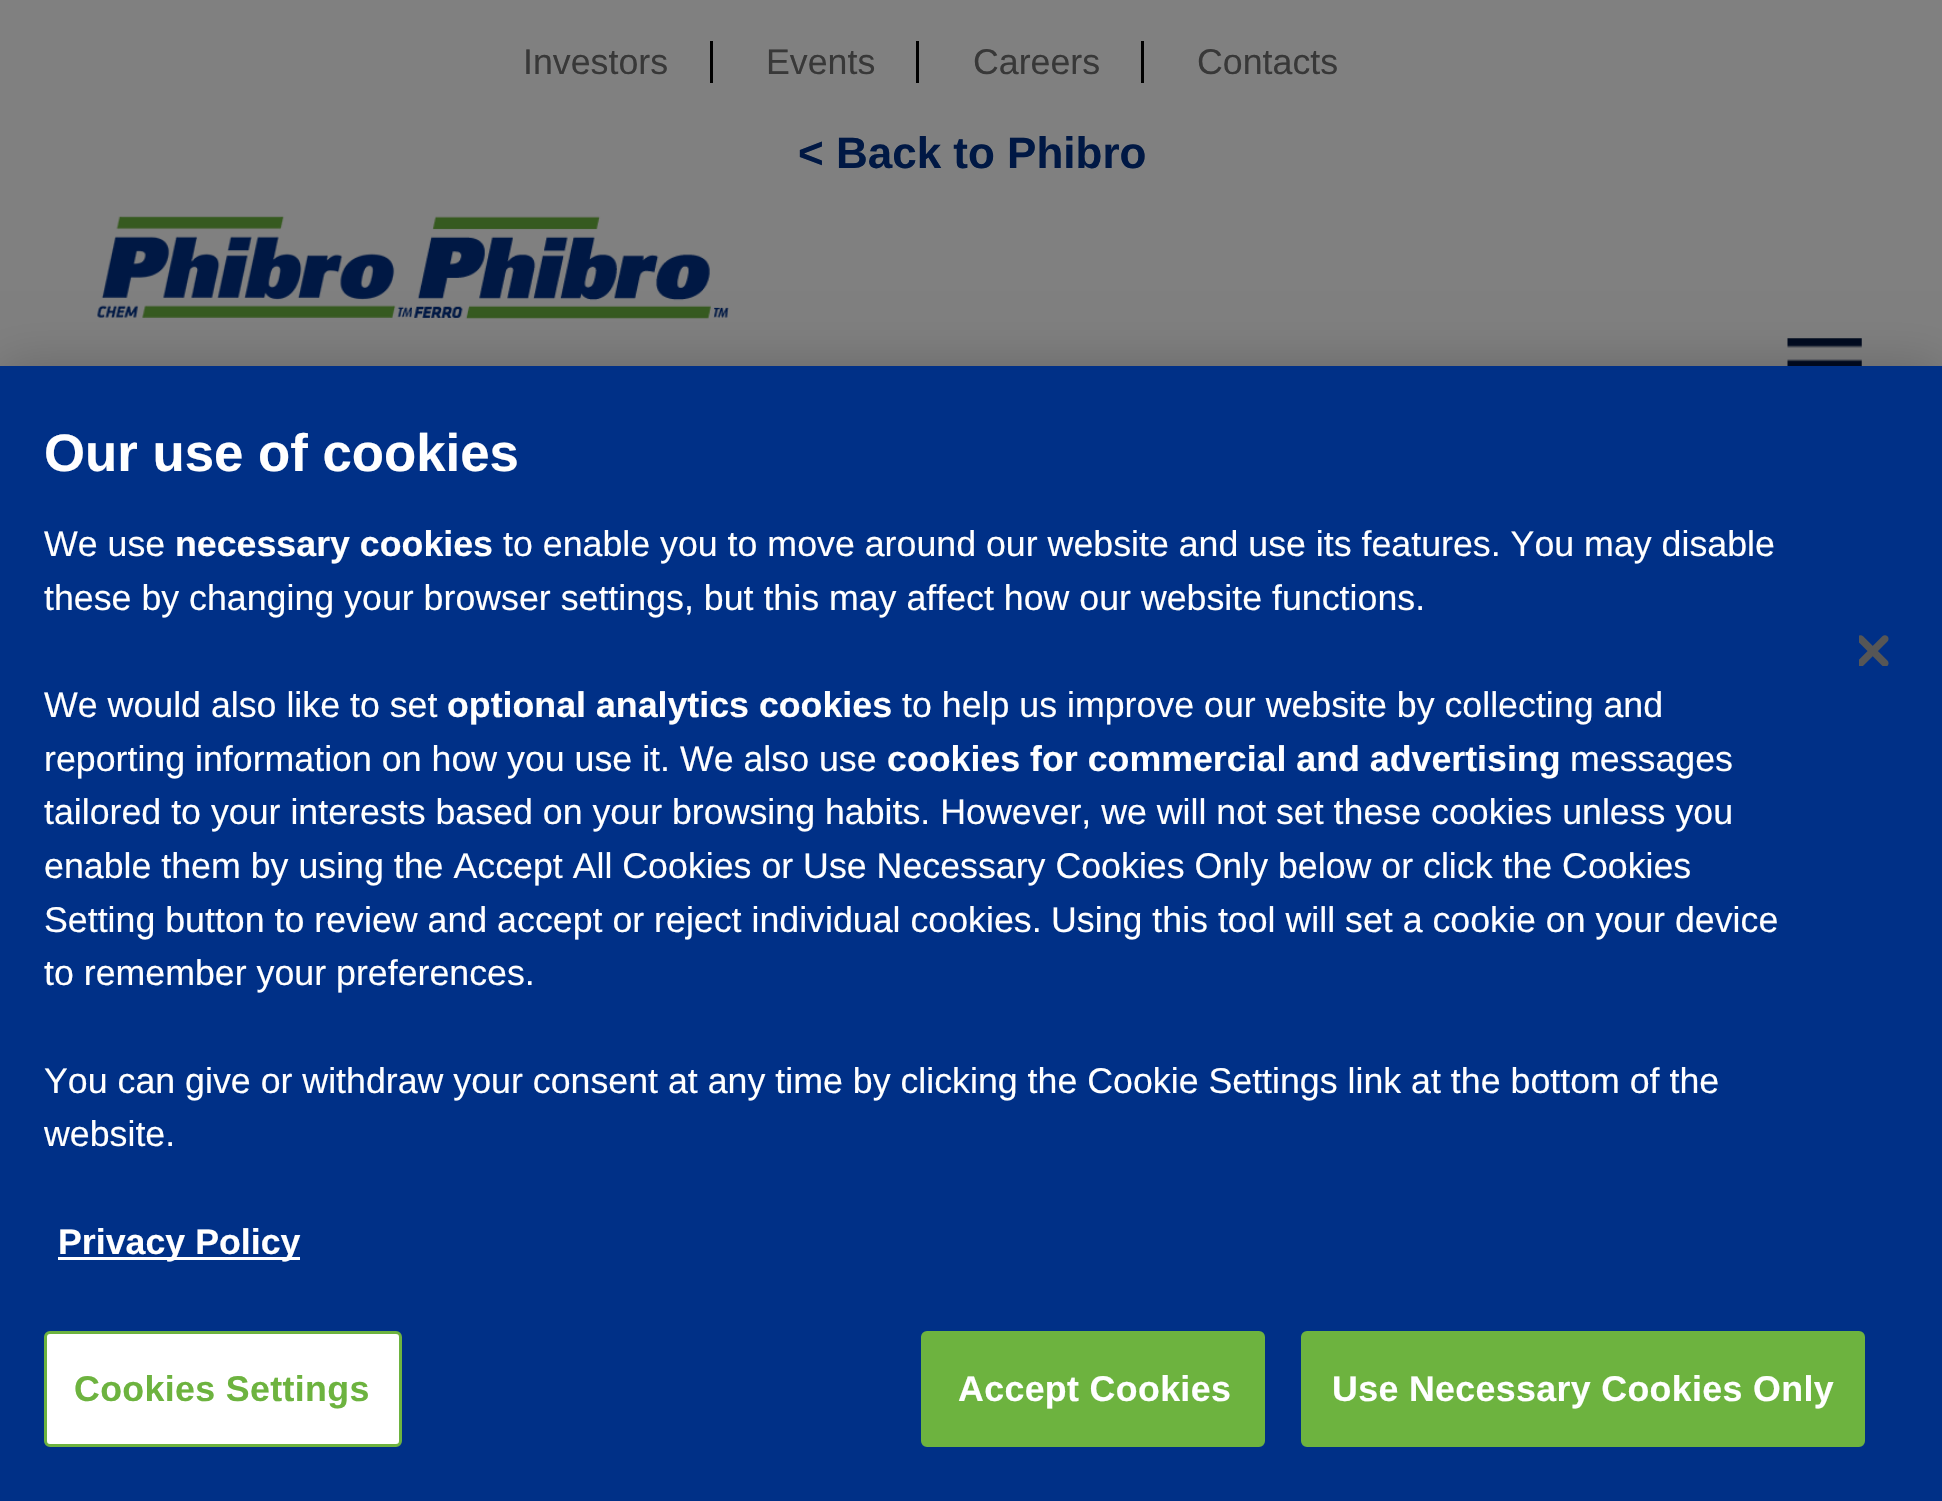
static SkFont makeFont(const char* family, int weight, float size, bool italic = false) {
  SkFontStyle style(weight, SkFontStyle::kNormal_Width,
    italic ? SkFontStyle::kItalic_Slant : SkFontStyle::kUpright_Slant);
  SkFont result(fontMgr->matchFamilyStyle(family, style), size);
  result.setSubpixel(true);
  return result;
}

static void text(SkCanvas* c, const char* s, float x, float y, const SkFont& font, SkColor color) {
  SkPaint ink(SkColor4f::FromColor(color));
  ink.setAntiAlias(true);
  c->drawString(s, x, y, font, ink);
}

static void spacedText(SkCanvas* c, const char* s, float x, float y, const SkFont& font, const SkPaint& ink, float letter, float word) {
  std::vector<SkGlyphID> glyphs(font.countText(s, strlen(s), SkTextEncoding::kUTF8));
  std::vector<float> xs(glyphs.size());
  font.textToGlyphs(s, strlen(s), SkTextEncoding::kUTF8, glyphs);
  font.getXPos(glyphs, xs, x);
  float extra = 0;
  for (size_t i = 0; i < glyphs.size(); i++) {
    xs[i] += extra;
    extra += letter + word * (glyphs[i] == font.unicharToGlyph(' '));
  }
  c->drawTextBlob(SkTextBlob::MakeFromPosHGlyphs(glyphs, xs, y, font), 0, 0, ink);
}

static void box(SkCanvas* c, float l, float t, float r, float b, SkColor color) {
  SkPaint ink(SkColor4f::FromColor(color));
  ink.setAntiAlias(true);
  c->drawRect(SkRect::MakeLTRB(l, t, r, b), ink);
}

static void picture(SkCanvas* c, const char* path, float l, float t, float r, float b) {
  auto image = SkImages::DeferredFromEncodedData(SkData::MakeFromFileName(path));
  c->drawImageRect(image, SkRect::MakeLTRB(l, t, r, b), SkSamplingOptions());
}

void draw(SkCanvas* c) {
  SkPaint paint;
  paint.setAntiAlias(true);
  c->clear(0xff808080);
  SkFont face1 = makeFont("Liberation Sans", 400, 35.75f);
  text(c, "Investors", 523, 74, face1, 0xff383838);
  box(c, 710, 41, 713, 83, 0xff000000);
  text(c, "Events", 766, 74, face1, 0xff383838);
  box(c, 916, 41, 919, 83, 0xff000000);
  text(c, "Careers", 973, 74, face1, 0xff383838);
  box(c, 1141, 41, 1144, 83, 0xff000000);
  text(c, "Contacts", 1197, 74, face1, 0xff383838);
  SkFont face2 = makeFont("Liberation Sans", 700, 44);
  text(c, "< Back to Phibro", 798, 168, face2, 0xff001844);
  picture(c, "img_01.png", 97, 216, 729, 319);
  picture(c, "img_02.png", 1787, 338, 1862, 366);
  paint.setColor(0x33000000);
  paint.setMaskFilter(SkMaskFilter::MakeBlur(kNormal_SkBlurStyle, 25));
  c->drawRect(SkRect::MakeLTRB(0, 366, 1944, 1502), paint);
  paint.setMaskFilter(nullptr);
  box(c, 0, 366, 1942, 1501, 0xff003087);
  SkFont face3 = makeFont("Liberation Sans", 700, 52.75f);
  text(c, "Our use of cookies", 44, 471, face3, 0xffffffff);
  text(c, "We use", 44, 556, face1, 0xffffffff);
  SkFont face4 = makeFont("Liberation Sans", 700, 35.75f);
  text(c, "necessary cookies", 175, 556, face4, 0xffffffff);
  text(c, "to enable you to move around our website and use its features. You may disable", 503, 556, face1, 0xffffffff);
  text(c, "these by changing your browser settings, but this may affect how our website functions.", 44, 610, face1, 0xffffffff);
  text(c, "We would also like to set", 44, 717, face1, 0xffffffff);
  text(c, "optional analytics cookies", 447, 717, face4, 0xffffffff);
  text(c, "to help us improve our website by collecting and", 902, 717, face1, 0xffffffff);
  text(c, "reporting information on how you use it. We also use", 44, 771, face1, 0xffffffff);
  text(c, "cookies for commercial and advertising", 887, 771, face4, 0xffffffff);
  text(c, "messages", 1570, 771, face1, 0xffffffff);
  text(c, "tailored to your interests based on your browsing habits. However, we will not set these cookies unless you", 44, 824, face1, 0xffffffff);
  text(c, "enable them by using the Accept All Cookies or Use Necessary Cookies Only below or click the Cookies", 44, 878, face1, 0xffffffff);
  text(c, "Setting button to review and accept or reject individual cookies.", 44, 932, face1, 0xffffffff);
  text(c, "Using this tool will set a cookie on your device", 1051, 932, face1, 0xffffffff);
  text(c, "to remember your preferences.", 44, 985, face1, 0xffffffff);
  text(c, "You can give or withdraw your consent at any time by clicking the Cookie Settings link at the bottom of the", 44, 1093, face1, 0xffffffff);
  text(c, "website.", 44, 1146, face1, 0xffffffff);
  box(c, 58, 1257, 300, 1260, 0xffffffff);
  text(c, "Privacy Policy", 58, 1254, face4, 0xffffffff);
  picture(c, "img_03.png", 1859, 635, 1889, 666);
  paint.setColor(0xffffffff);
  c->drawRoundRect(SkRect::MakeLTRB(45.5f, 1332.5f, 400.5f, 1445.5f), 4.5f, 4.5f, paint);
  paint.setStyle(SkPaint::kStroke_Style);
  paint.setStrokeWidth(3);
  paint.setColor(0xff6db33f);
  c->drawRoundRect(SkRect::MakeLTRB(45.5f, 1332.5f, 400.5f, 1445.5f), 4.5f, 4.5f, paint);
  paint.setStyle(SkPaint::kFill_Style);
  spacedText(c, "Cookies Settings", 74, 1401, face4, paint, 0.35f, 0);
  c->drawRoundRect(SkRect::MakeLTRB(922.5f, 1332.5f, 1263.5f, 1445.5f), 4.5f, 4.5f, paint);
  paint.setStyle(SkPaint::kStroke_Style);
  c->drawRoundRect(SkRect::MakeLTRB(922.5f, 1332.5f, 1263.5f, 1445.5f), 4.5f, 4.5f, paint);
  paint.setStyle(SkPaint::kFill_Style);
  paint.setColor(0xffffffff);
  spacedText(c, "Accept Cookies", 958, 1401, face4, paint, 0.35f, 0);
  paint.setColor(0xff6db33f);
  c->drawRoundRect(SkRect::MakeLTRB(1302.5f, 1332.5f, 1863.5f, 1445.5f), 4.5f, 4.5f, paint);
  paint.setStyle(SkPaint::kStroke_Style);
  c->drawRoundRect(SkRect::MakeLTRB(1302.5f, 1332.5f, 1863.5f, 1445.5f), 4.5f, 4.5f, paint);
  paint.setStyle(SkPaint::kFill_Style);
  paint.setColor(0xffffffff);
  spacedText(c, "Use Necessary Cookies Only", 1332, 1401, face4, paint, 0.35f, 0);
}
